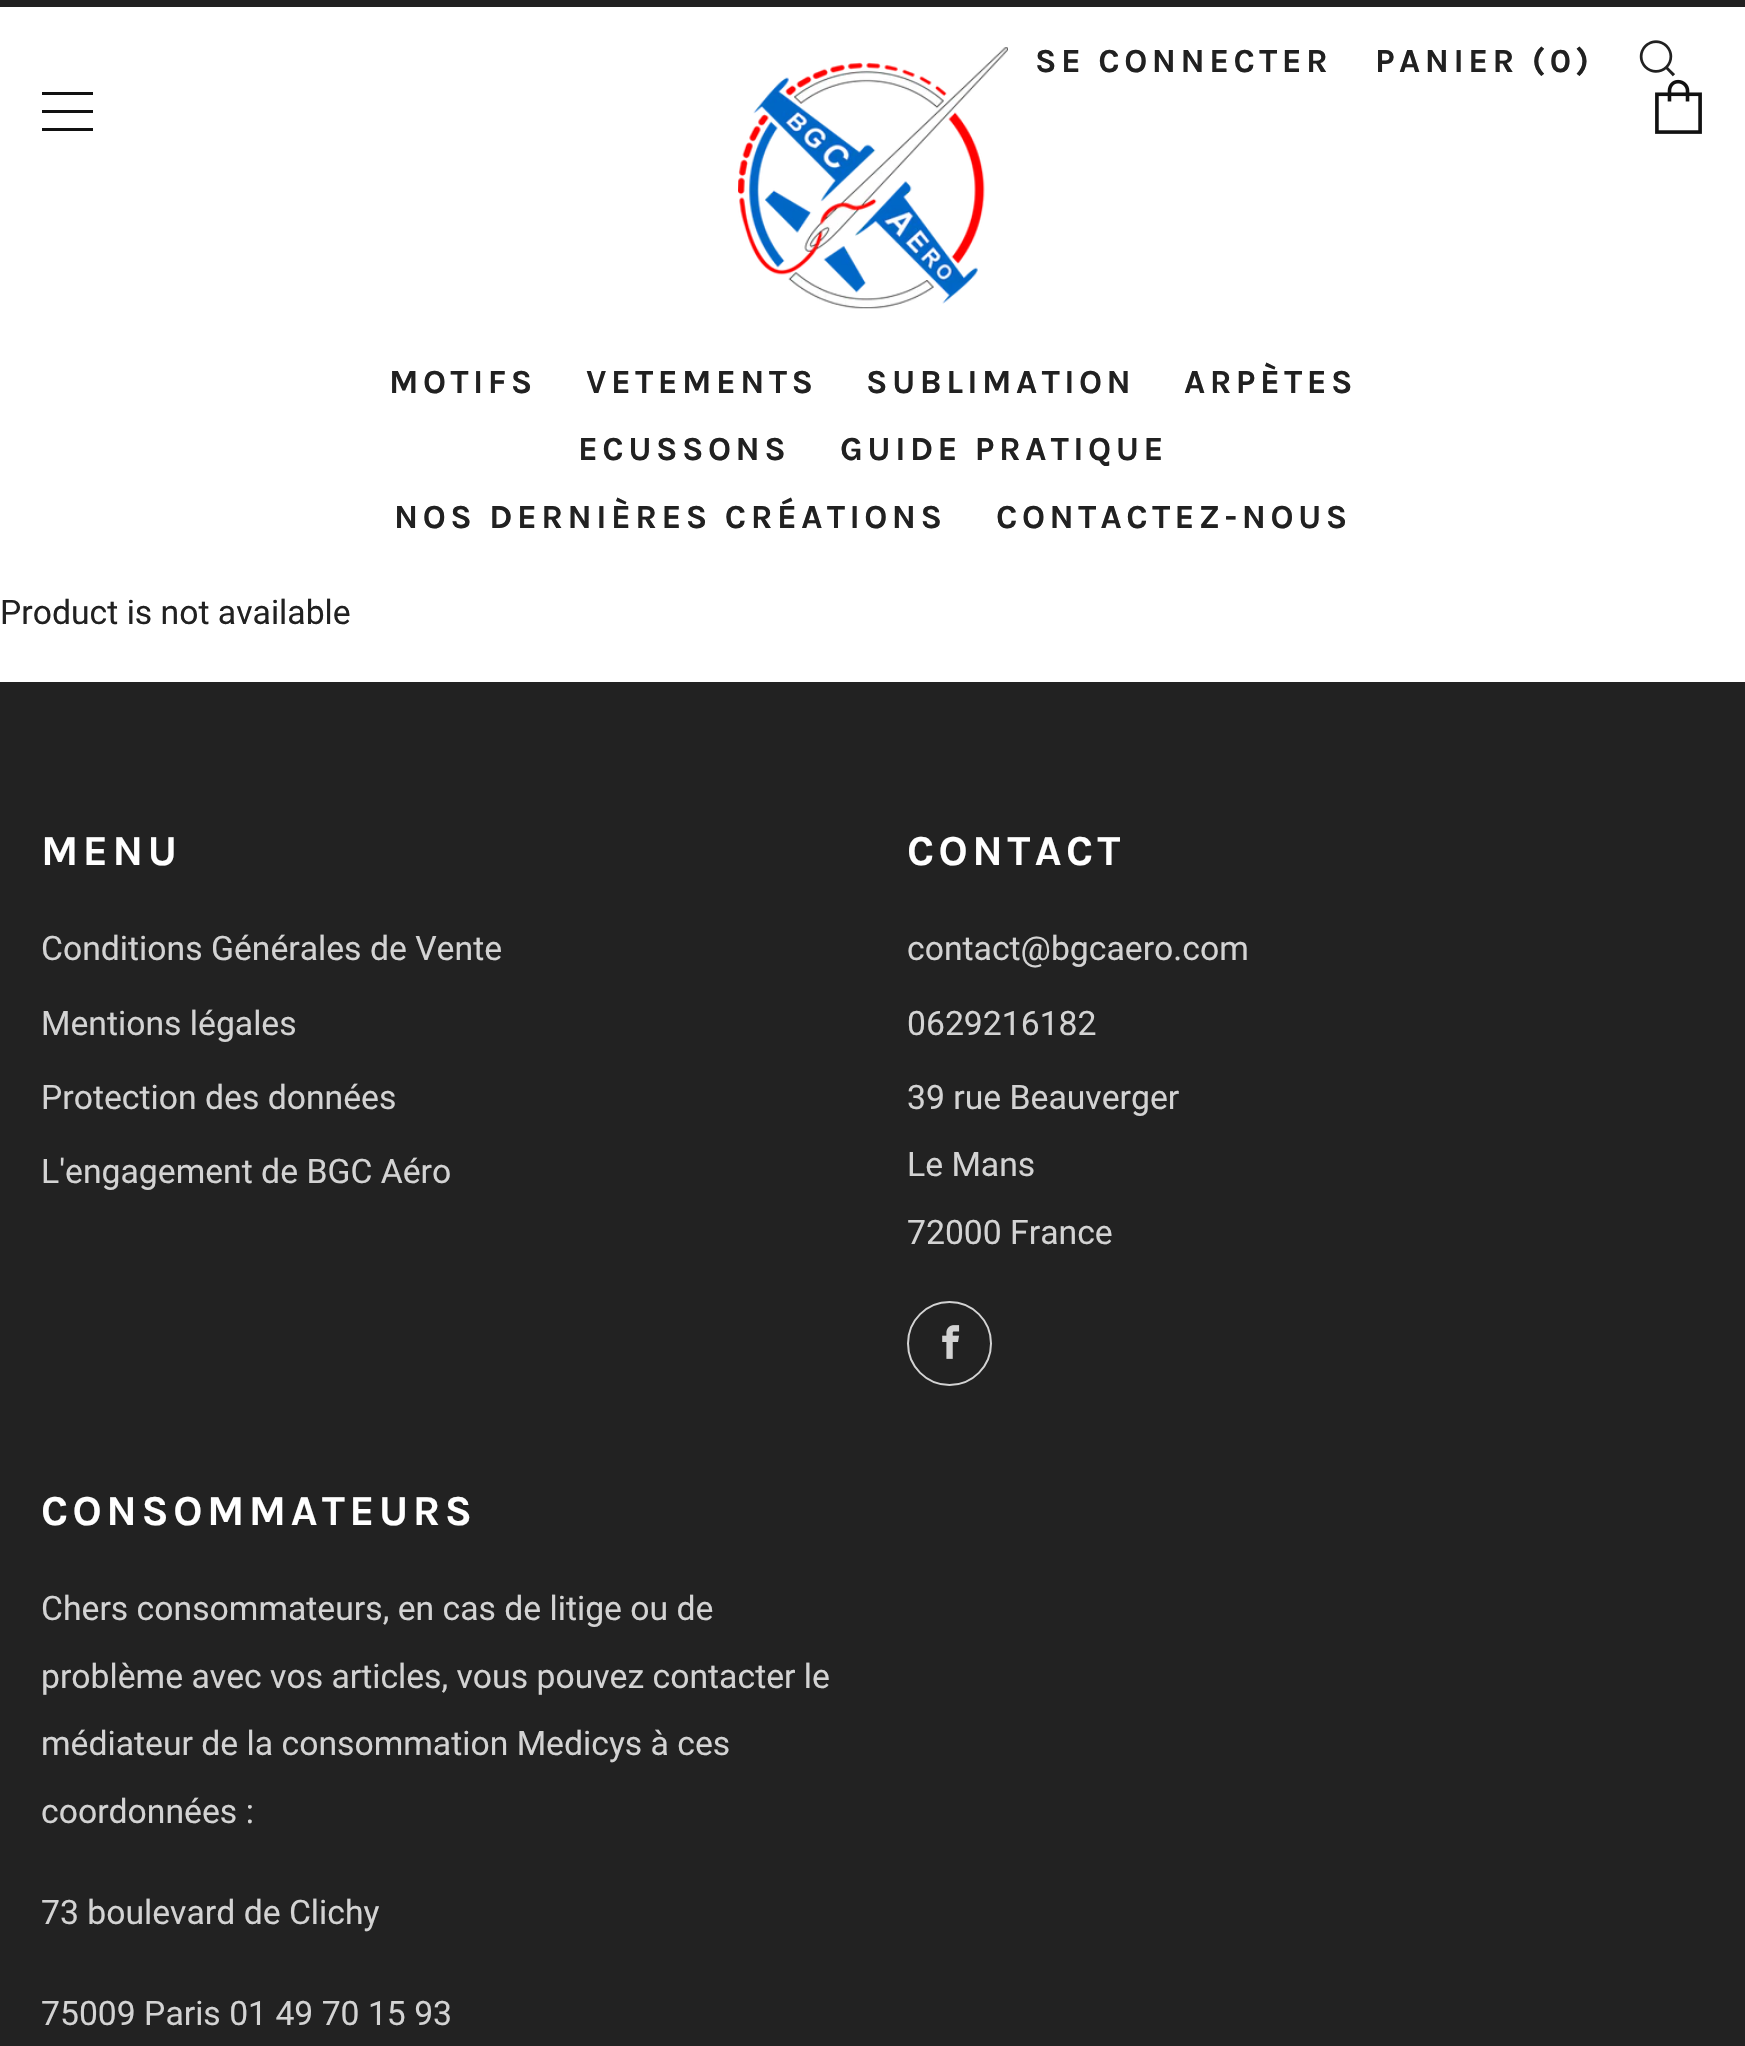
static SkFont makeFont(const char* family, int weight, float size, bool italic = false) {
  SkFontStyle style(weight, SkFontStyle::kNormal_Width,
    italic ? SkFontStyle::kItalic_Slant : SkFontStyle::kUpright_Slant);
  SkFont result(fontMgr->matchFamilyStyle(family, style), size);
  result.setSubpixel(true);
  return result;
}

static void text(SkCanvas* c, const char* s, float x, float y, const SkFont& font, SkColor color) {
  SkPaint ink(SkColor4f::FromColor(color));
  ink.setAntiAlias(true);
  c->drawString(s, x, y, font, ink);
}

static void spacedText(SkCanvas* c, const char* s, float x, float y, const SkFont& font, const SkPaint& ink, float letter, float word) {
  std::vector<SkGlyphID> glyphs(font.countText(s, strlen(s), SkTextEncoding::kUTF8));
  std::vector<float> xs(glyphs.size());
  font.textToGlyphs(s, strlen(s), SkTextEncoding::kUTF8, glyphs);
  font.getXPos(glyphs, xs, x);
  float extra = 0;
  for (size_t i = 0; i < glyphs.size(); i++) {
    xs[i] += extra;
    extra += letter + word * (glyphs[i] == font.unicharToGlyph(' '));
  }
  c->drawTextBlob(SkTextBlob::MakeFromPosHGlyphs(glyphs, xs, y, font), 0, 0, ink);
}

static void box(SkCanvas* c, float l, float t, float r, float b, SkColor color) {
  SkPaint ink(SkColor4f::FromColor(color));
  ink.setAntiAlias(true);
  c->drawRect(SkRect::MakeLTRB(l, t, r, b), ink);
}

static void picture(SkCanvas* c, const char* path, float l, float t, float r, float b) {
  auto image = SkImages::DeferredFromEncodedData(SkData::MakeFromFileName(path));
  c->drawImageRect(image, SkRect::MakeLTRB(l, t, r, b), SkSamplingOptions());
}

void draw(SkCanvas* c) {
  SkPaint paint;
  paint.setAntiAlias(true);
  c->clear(0xffffffff);
  box(c, 0, 0, 1745, 7, 0xff212121);
  SkFont face1 = makeFont("Karla", 700, 33.75f);
  paint.setColor(0xff212121);
  spacedText(c, "SE CONNECTER", 1035, 72, face1, paint, 4.5f, 0);
  spacedText(c, "PANIER (0)", 1375, 72, face1, paint, 4.5f, 0);
  picture(c, "img_01.png", 1639, 40, 1675, 77);
  spacedText(c, "MOTIFS", 389, 393, face1, paint, 4.5f, 0);
  spacedText(c, "VETEMENTS", 586, 393, face1, paint, 4.5f, 0);
  spacedText(c, "SUBLIMATION", 866, 393, face1, paint, 4.5f, 0);
  spacedText(c, "ARPÈTES", 1184, 393, face1, paint, 4.5f, 0);
  spacedText(c, "ECUSSONS", 578, 460, face1, paint, 4.5f, 0);
  spacedText(c, "GUIDE PRATIQUE", 840, 460, face1, paint, 4.5f, 0);
  spacedText(c, "NOS DERNIÈRES CRÉATIONS", 394, 528, face1, paint, 4.5f, 0);
  spacedText(c, "CONTACTEZ-NOUS", 996, 528, face1, paint, 4.5f, 0);
  paint.setColor(0xff111111);
  c->drawPath(SkPathBuilder().moveTo(42, 95).lineTo(93, 95).lineTo(93, 92).lineTo(42, 92).close().moveTo(42, 131).lineTo(93, 131).lineTo(93, 128).lineTo(42, 128).close().moveTo(42, 113).lineTo(93, 113).lineTo(93, 110).lineTo(42, 110).close().detach(), paint);
  picture(c, "img_02.png", 738, 47, 1008, 309);
  picture(c, "img_03.png", 1655, 79, 1702, 134);
  SkFont face2 = makeFont("Roboto", 400, 33.75f);
  text(c, "Product is not available", 0, 624, face2, 0xff212121);
  box(c, 0, 682, 1745, 2046, 0xff222222);
  SkFont face3 = makeFont("Karla", 700, 42.75f);
  paint.setColor(0xffffffff);
  spacedText(c, "MENU", 41, 865, face3, paint, 4.5f, 0);
  text(c, "Conditions Générales de Vente", 41, 960, face2, 0xffd3d3d3);
  text(c, "Mentions légales", 41, 1035, face2, 0xffd3d3d3);
  text(c, "Protection des données", 41, 1109, face2, 0xffd3d3d3);
  text(c, "L'engagement de BGC Aéro", 41, 1183, face2, 0xffd3d3d3);
  spacedText(c, "CONTACT", 907, 865, face3, paint, 4.5f, 0);
  text(c, "contact@bgcaero.com", 907, 960, face2, 0xffd3d3d3);
  text(c, "0629216182", 907, 1035, face2, 0xffd3d3d3);
  text(c, "39 rue Beauverger", 907, 1109, face2, 0xffd3d3d3);
  text(c, "Le Mans", 907, 1176, face2, 0xffd3d3d3);
  text(c, "72000 France", 907, 1244, face2, 0xffd3d3d3);
  paint.setStyle(SkPaint::kStroke_Style);
  paint.setStrokeWidth(2);
  paint.setColor(0xffd3d3d3);
  c->drawCircle(949.5f, 1343.5f, 41.5f, paint);
  picture(c, "img_04.png", 942, 1325, 960, 1359);
  paint.setStyle(SkPaint::kFill_Style);
  paint.setColor(0xffffffff);
  spacedText(c, "CONSOMMATEURS", 41, 1525, face3, paint, 4.5f, 0);
  text(c, "Chers consommateurs, en cas de litige ou de", 41, 1620, face2, 0xffd3d3d3);
  text(c, "problème avec vos articles, vous pouvez contacter le", 41, 1688, face2, 0xffd3d3d3);
  text(c, "médiateur de la consommation Medicys à ces", 41, 1755, face2, 0xffd3d3d3);
  text(c, "coordonnées :", 41, 1823, face2, 0xffd3d3d3);
  text(c, "73 boulevard de Clichy", 41, 1924, face2, 0xffd3d3d3);
  text(c, "75009 Paris 01 49 70 15 93", 41, 2025, face2, 0xffd3d3d3);
}
